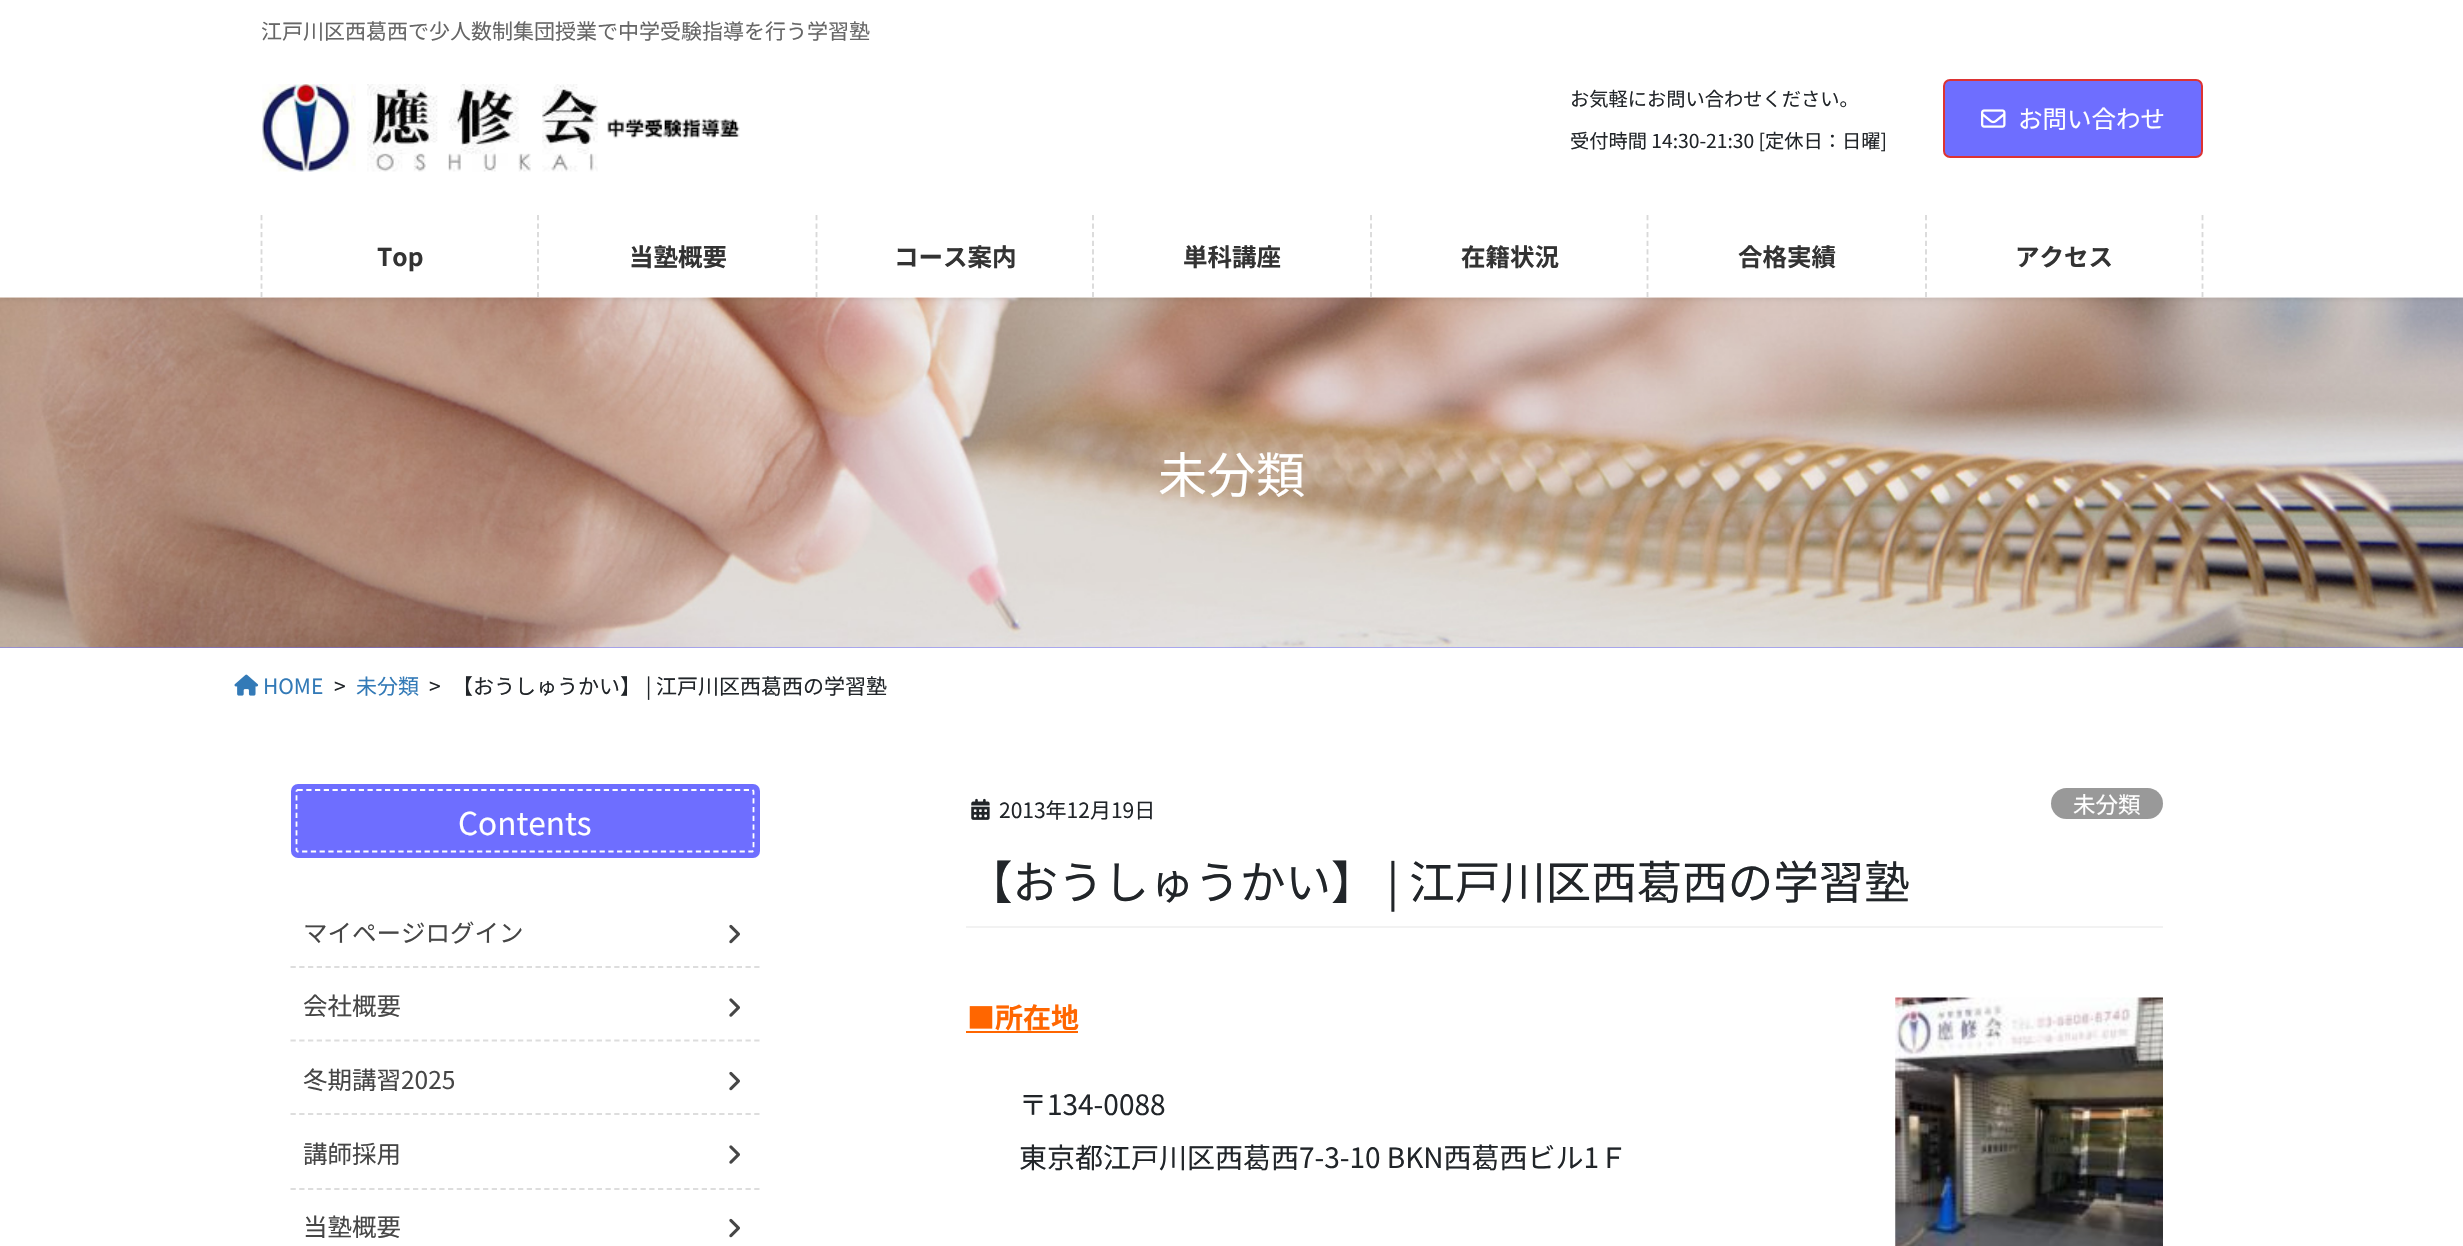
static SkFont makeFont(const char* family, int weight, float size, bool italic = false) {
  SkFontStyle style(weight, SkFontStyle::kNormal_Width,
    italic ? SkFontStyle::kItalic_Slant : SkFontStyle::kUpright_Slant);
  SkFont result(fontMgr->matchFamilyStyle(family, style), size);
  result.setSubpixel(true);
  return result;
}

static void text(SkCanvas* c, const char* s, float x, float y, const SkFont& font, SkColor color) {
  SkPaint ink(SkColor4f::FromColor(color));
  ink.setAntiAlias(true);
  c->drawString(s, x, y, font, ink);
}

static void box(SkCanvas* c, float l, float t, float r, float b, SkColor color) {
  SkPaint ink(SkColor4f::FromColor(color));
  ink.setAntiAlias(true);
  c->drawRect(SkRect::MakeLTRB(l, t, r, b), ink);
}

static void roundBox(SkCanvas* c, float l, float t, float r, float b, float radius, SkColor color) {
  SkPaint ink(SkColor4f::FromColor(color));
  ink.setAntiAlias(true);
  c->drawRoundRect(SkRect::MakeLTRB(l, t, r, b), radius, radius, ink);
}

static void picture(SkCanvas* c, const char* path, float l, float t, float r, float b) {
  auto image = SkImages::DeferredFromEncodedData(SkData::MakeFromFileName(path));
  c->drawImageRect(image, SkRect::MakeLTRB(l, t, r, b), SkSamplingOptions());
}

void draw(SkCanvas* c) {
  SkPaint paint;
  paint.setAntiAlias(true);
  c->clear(0xffffffff);
  box(c, 0, 647, 2463, 648, 0xff6e6eff);
  picture(c, "img_03.png", 0, 297, 2463, 648);
  c->save();
  c->clipPath(SkPathBuilder(SkPathFillType::kEvenOdd).moveTo(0, 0).lineTo(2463, 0).lineTo(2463, 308).lineTo(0, 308).close().moveTo(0, -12).lineTo(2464, -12).lineTo(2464, 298).lineTo(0, 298).close().detach(), true);
  paint.setColor(0x1a000000);
  paint.setMaskFilter(SkMaskFilter::MakeBlur(kNormal_SkBlurStyle, 2.5f));
  c->drawRect(SkRect::MakeLTRB(0, -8, 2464, 299), paint);
  paint.setMaskFilter(nullptr);
  c->restore();
  SkFont face1 = makeFont("Noto Sans JP", 400, 21);
  text(c, "江戸川区西葛西で少人数制集団授業で中学受験指導を行う学習塾", 261, 39, face1, 0xff666666);
  picture(c, "img_01.png", 262, 84, 740, 172);
  SkFont face2 = makeFont("Noto Sans JP", 400, 19.25f);
  text(c, "お気軽にお問い合わせください。", 1570, 106, face2, 0xff212529);
  text(c, "受付時間 14:30-21:30 [定休日：日曜]", 1570, 148, face2, 0xff212529);
  paint.setColor(0xff6e6eff);
  c->drawRoundRect(SkRect::MakeLTRB(1944, 80, 2202, 157), 6, 6, paint);
  paint.setStyle(SkPaint::kStroke_Style);
  paint.setStrokeWidth(2);
  paint.setColor(0xffdd3333);
  c->drawRoundRect(SkRect::MakeLTRB(1944, 80, 2202, 157), 6, 6, paint);
  picture(c, "img_02.png", 1981, 109, 2006, 128);
  SkFont face3 = makeFont("Noto Sans JP", 400, 24.5f);
  text(c, "お問い合わせ", 2018, 128, face3, 0xffffffff);
  paint.setStrokeWidth(1.8f);
  paint.setColor(0xffd9d9d9);
  paint.setPathEffect(SkDashPathEffect::Make({{5.25f, 3.31f}}, 0));
  c->drawPath(SkPathBuilder().moveTo(261.5f, 215).lineTo(261.5f, 297.5f).detach(), paint);
  paint.setPathEffect(nullptr);
  SkFont face4 = makeFont("Noto Sans JP", 700, 24.5f);
  text(c, "Top", 377, 266, face4, 0xff333333);
  paint.setPathEffect(SkDashPathEffect::Make({{5.25f, 3.31f}}, 0));
  c->drawPath(SkPathBuilder().moveTo(538, 215).lineTo(538, 297.5f).detach(), paint);
  paint.setPathEffect(nullptr);
  text(c, "当塾概要", 629, 266, face4, 0xff333333);
  paint.setPathEffect(SkDashPathEffect::Make({{5.25f, 3.31f}}, 0));
  c->drawPath(SkPathBuilder().moveTo(816.5f, 215).lineTo(816.5f, 297.5f).detach(), paint);
  paint.setPathEffect(nullptr);
  text(c, "コース案内", 894, 266, face4, 0xff333333);
  paint.setPathEffect(SkDashPathEffect::Make({{5.25f, 3.31f}}, 0));
  c->drawPath(SkPathBuilder().moveTo(1093, 215).lineTo(1093, 297.5f).detach(), paint);
  paint.setPathEffect(nullptr);
  text(c, "単科講座", 1183, 266, face4, 0xff333333);
  paint.setPathEffect(SkDashPathEffect::Make({{5.25f, 3.31f}}, 0));
  c->drawPath(SkPathBuilder().moveTo(1371, 215).lineTo(1371, 297.5f).detach(), paint);
  paint.setPathEffect(nullptr);
  text(c, "在籍状況", 1461, 266, face4, 0xff333333);
  paint.setPathEffect(SkDashPathEffect::Make({{5.25f, 3.31f}}, 0));
  c->drawPath(SkPathBuilder().moveTo(1647.5f, 215).lineTo(1647.5f, 297.5f).detach(), paint);
  paint.setPathEffect(nullptr);
  text(c, "合格実績", 1738, 266, face4, 0xff333333);
  paint.setPathEffect(SkDashPathEffect::Make({{5.25f, 3.31f}}, 0));
  c->drawPath(SkPathBuilder().moveTo(2202.5f, 215).lineTo(2202.5f, 297.5f).detach(), paint);
  paint.setPathEffect(nullptr);
  paint.setPathEffect(SkDashPathEffect::Make({{5.25f, 3.31f}}, 0));
  c->drawPath(SkPathBuilder().moveTo(1926, 215).lineTo(1926, 297.5f).detach(), paint);
  paint.setPathEffect(nullptr);
  text(c, "アクセス", 2015, 266, face4, 0xff333333);
  SkFont face5 = makeFont("Noto Sans JP", 400, 49);
  text(c, "未分類", 1158, 493, face5, 0xffffffff);
  picture(c, "img_04.png", 234, 674, 259, 696);
  text(c, "HOME", 263, 694, face1, 0xff337ab7);
  text(c, ">", 334, 694, face1, 0xff212529);
  text(c, "未分類", 356, 694, face1, 0xff337ab7);
  text(c, ">", 429, 694, face1, 0xff212529);
  text(c, "【おうしゅうかい】 | 江戸川区西葛西の学習塾", 452, 694, face1, 0xff212529);
  roundBox(c, 291, 784, 760, 858, 7, 0xff6e6eff);
  paint.setColor(0xffffffff);
  paint.setPathEffect(SkDashPathEffect::Make({{5.25f, 3.5f}}, 0));
  c->drawPath(SkPathBuilder().moveTo(297.5f, 790).lineTo(752.5f, 790).lineTo(753.5f, 791).lineTo(753.5f, 850.5f).lineTo(752.5f, 851.5f).lineTo(297.5f, 851.5f).lineTo(296.5f, 850.5f).lineTo(296.5f, 791).close().detach(), paint);
  paint.setPathEffect(nullptr);
  SkFont face6 = makeFont("Noto Sans JP", 400, 31.5f);
  text(c, "Contents", 458, 835, face6, 0xffffffff);
  paint.setColor(0xffdddddd);
  paint.setPathEffect(SkDashPathEffect::Make({{5.25f, 3.5f}}, 0));
  c->drawPath(SkPathBuilder().moveTo(290.5f, 967).lineTo(759.5f, 967).detach(), paint);
  paint.setPathEffect(nullptr);
  text(c, "マイページログイン", 303, 942, face3, 0xff464646);
  picture(c, "img_05.png", 729, 924, 740, 944);
  paint.setPathEffect(SkDashPathEffect::Make({{5.25f, 3.5f}}, 0));
  c->drawPath(SkPathBuilder().moveTo(290.5f, 1040.5f).lineTo(759.5f, 1040.5f).detach(), paint);
  paint.setPathEffect(nullptr);
  text(c, "会社概要", 303, 1015, face3, 0xff464646);
  picture(c, "img_06.png", 729, 998, 740, 1017);
  paint.setPathEffect(SkDashPathEffect::Make({{5.25f, 3.5f}}, 0));
  c->drawPath(SkPathBuilder().moveTo(290.5f, 1114).lineTo(759.5f, 1114).detach(), paint);
  paint.setPathEffect(nullptr);
  text(c, "冬期講習2025", 303, 1089, face3, 0xff464646);
  picture(c, "img_05.png", 729, 1071, 740, 1091);
  paint.setPathEffect(SkDashPathEffect::Make({{5.25f, 3.5f}}, 0));
  c->drawPath(SkPathBuilder().moveTo(290.5f, 1189).lineTo(759.5f, 1189).detach(), paint);
  paint.setPathEffect(nullptr);
  text(c, "講師採用", 303, 1163, face3, 0xff464646);
  picture(c, "img_06.png", 729, 1145, 740, 1164);
  text(c, "当塾概要", 303, 1236, face3, 0xff464646);
  picture(c, "img_05.png", 729, 1218, 740, 1238);
  box(c, 966, 926, 2163, 928, 0xfff2f2f2);
  picture(c, "img_07.png", 971, 798, 990, 820);
  text(c, "2013年12月19日", 999, 818, face1, 0xff212529);
  roundBox(c, 2051, 788, 2163, 819, 15.5f, 0xff999999);
  SkFont face7 = makeFont("Noto Sans JP", 400, 22.5f);
  text(c, "未分類", 2073, 813, face7, 0xffffffff);
  SkFont face8 = makeFont("Noto Sans JP", 400, 45.5f);
  text(c, "【おうしゅうかい】 | 江戸川区西葛西の学習塾", 967, 899, face8, 0xff212529);
  SkFont face9 = makeFont("Noto Sans JP", 700, 28);
  text(c, "■所在地", 967, 1028, face9, 0xffff6600);
  box(c, 966, 1031, 1078, 1033, 0xffff6600);
  picture(c, "img_08.png", 1895, 997, 2163, 1246);
  SkFont face10 = makeFont("Noto Sans JP", 400, 28);
  text(c, "〒134-0088", 1019, 1115, face10, 0xff212529);
  text(c, "東京都江戸川区西葛西7-3-10 BKN西葛西ビル1Ｆ", 1019, 1168, face10, 0xff212529);
}
